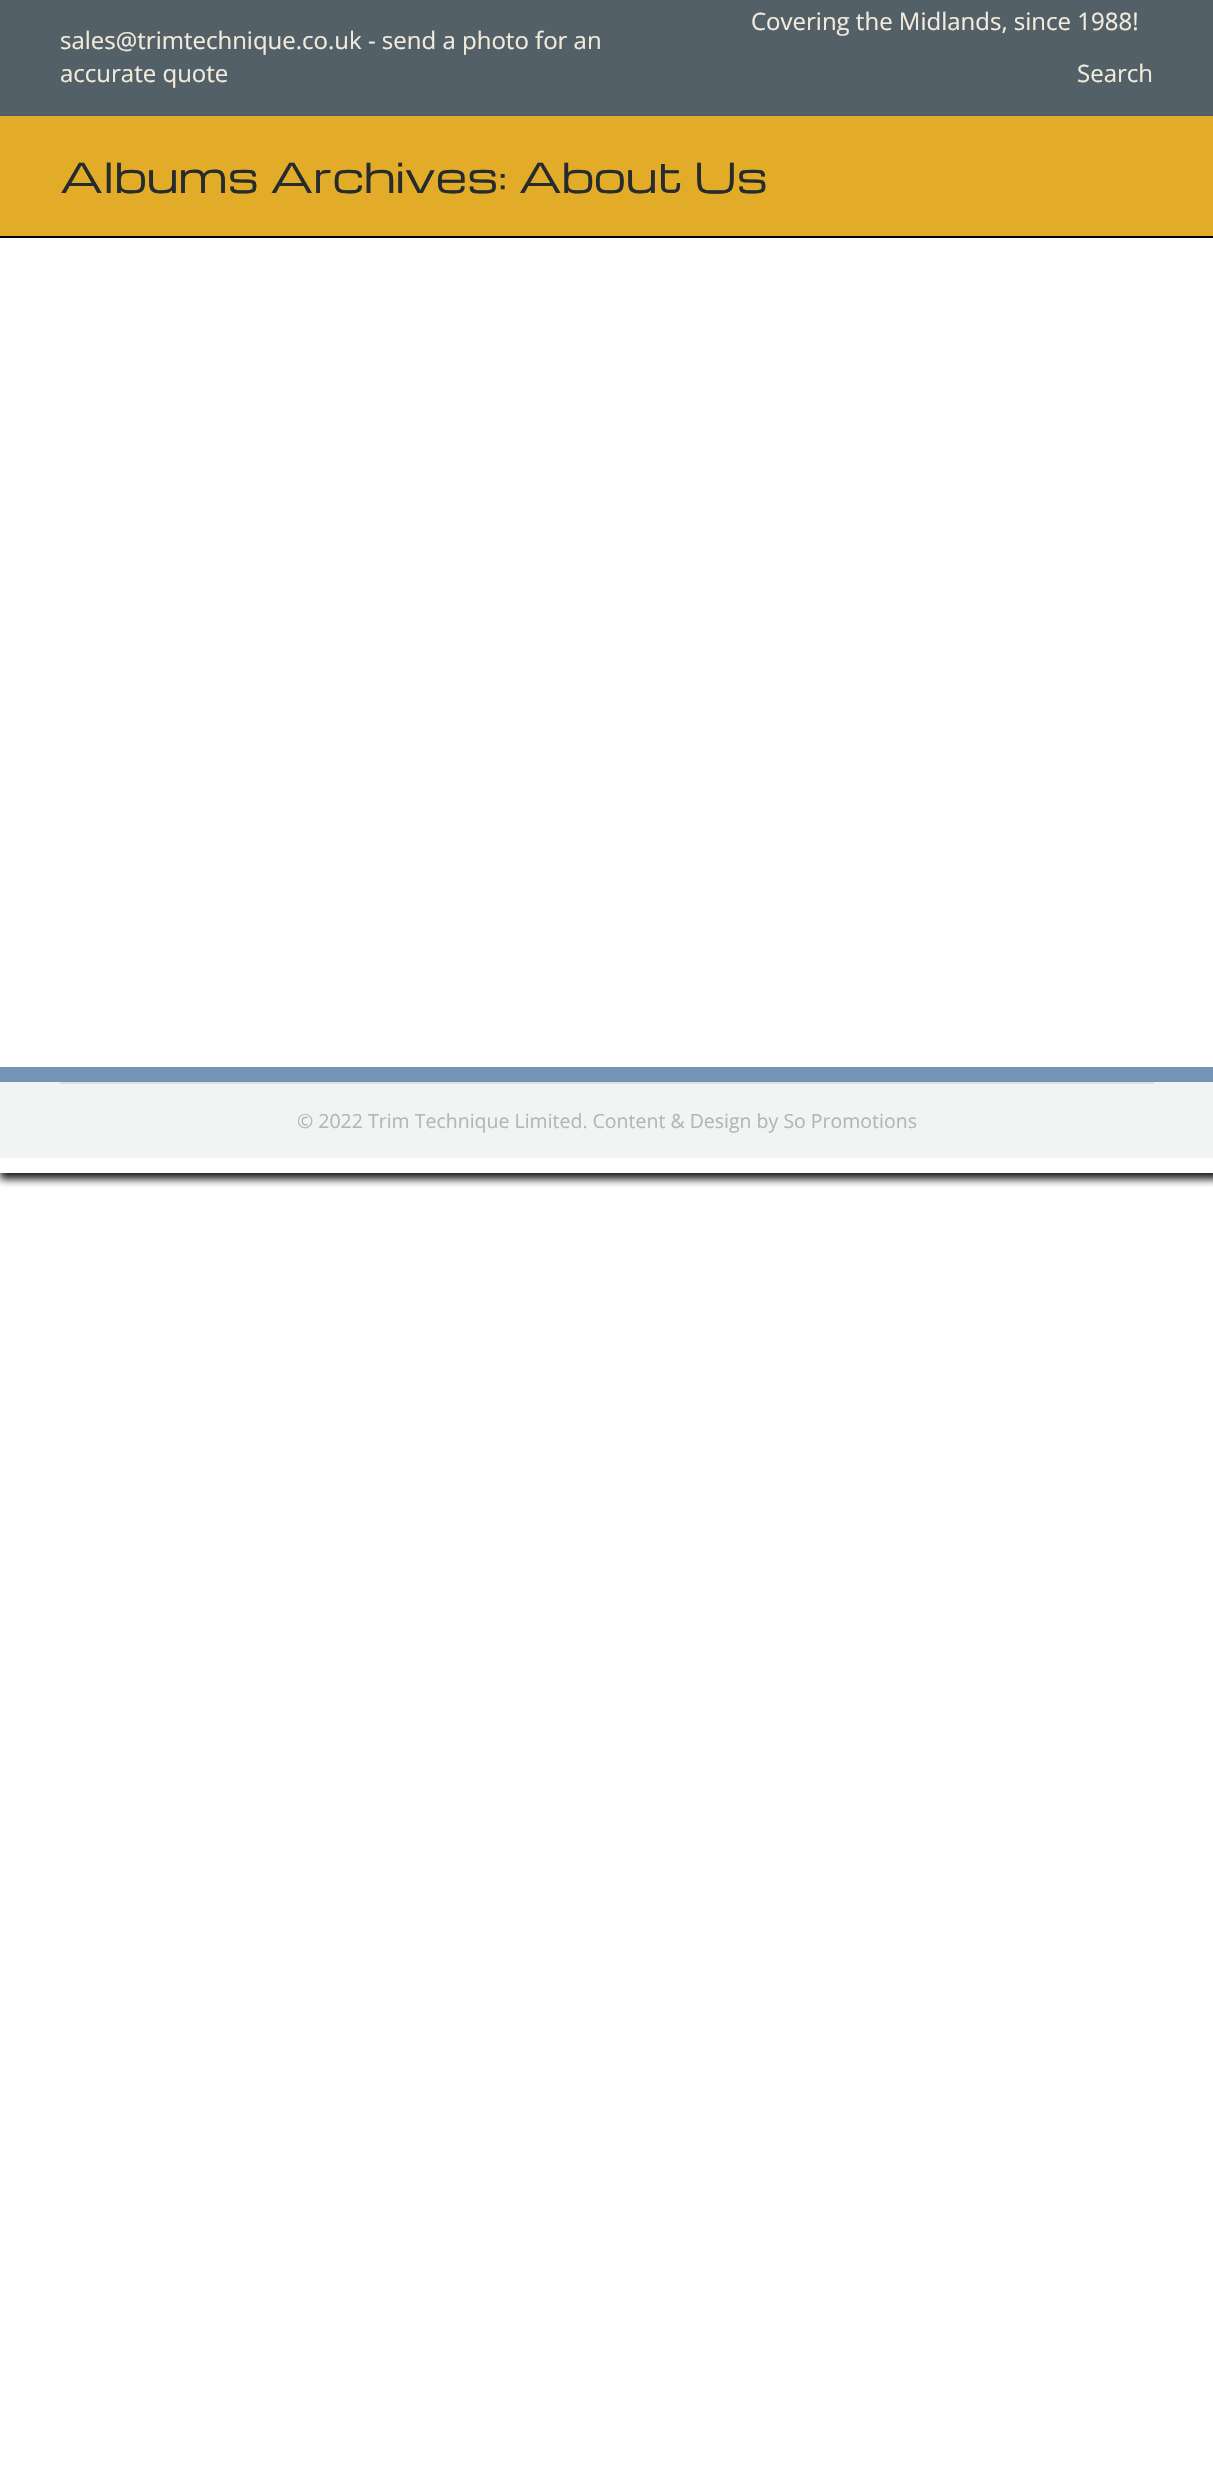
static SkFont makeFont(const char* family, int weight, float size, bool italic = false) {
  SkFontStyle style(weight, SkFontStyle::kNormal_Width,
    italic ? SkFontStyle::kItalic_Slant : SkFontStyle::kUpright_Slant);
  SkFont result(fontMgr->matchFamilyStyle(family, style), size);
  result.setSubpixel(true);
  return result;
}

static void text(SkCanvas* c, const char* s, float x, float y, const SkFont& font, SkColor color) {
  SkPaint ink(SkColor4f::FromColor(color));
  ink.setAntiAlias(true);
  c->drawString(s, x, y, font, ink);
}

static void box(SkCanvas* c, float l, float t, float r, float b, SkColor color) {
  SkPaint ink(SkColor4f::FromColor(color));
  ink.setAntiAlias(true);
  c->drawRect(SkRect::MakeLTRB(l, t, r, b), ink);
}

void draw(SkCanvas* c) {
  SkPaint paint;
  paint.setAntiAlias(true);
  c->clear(0xffffffff);
  box(c, 0, 114, 1213, 116, 0xff505d65);
  box(c, 0, 0, 1213, 114, 0xff546068);
  SkFont face1 = makeFont("Open Sans", 400, 24);
  text(c, "sales@trimtechnique.co.uk - send a photo for an", 60, 49, face1, 0xfff1ebdc);
  text(c, "accurate quote", 60, 82, face1, 0xfff1ebdc);
  text(c, "Covering the Midlands, since 1988!", 751, 30, face1, 0xfff1ebdc);
  text(c, "Search", 1077, 82, face1, 0xfff1ebdc);
  box(c, 0, 116, 1213, 236, 0xffe2ab28);
  box(c, 0, 236, 1213, 238, 0xff000000);
  SkFont face2 = makeFont("Michroma", 400, 40.5f);
  text(c, "Albums Archives: About Us", 60, 193, face2, 0xff262b2e);
  c->save();
  c->clipRect(SkRect::MakeLTRB(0, 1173, 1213, 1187));
  paint.setColor(0xff161616);
  paint.setMaskFilter(SkMaskFilter::MakeBlur(kNormal_SkBlurStyle, 4));
  c->drawRect(SkRect::MakeLTRB(0, 1158, 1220, 1179), paint);
  paint.setMaskFilter(nullptr);
  c->restore();
  box(c, 0, 1082, 1213, 1158, 0xfff2f3f3);
  box(c, 0, 1067, 1213, 1082, 0xff7593b3);
  box(c, 60, 1082, 1154, 1084, 0xffdedfdf);
  SkFont face3 = makeFont("Open Sans", 400, 19.5f);
  text(c, "© 2022 Trim Technique Limited. Content & Design by So Promotions", 297, 1128, face3, 0xffb3b5b6);
}
